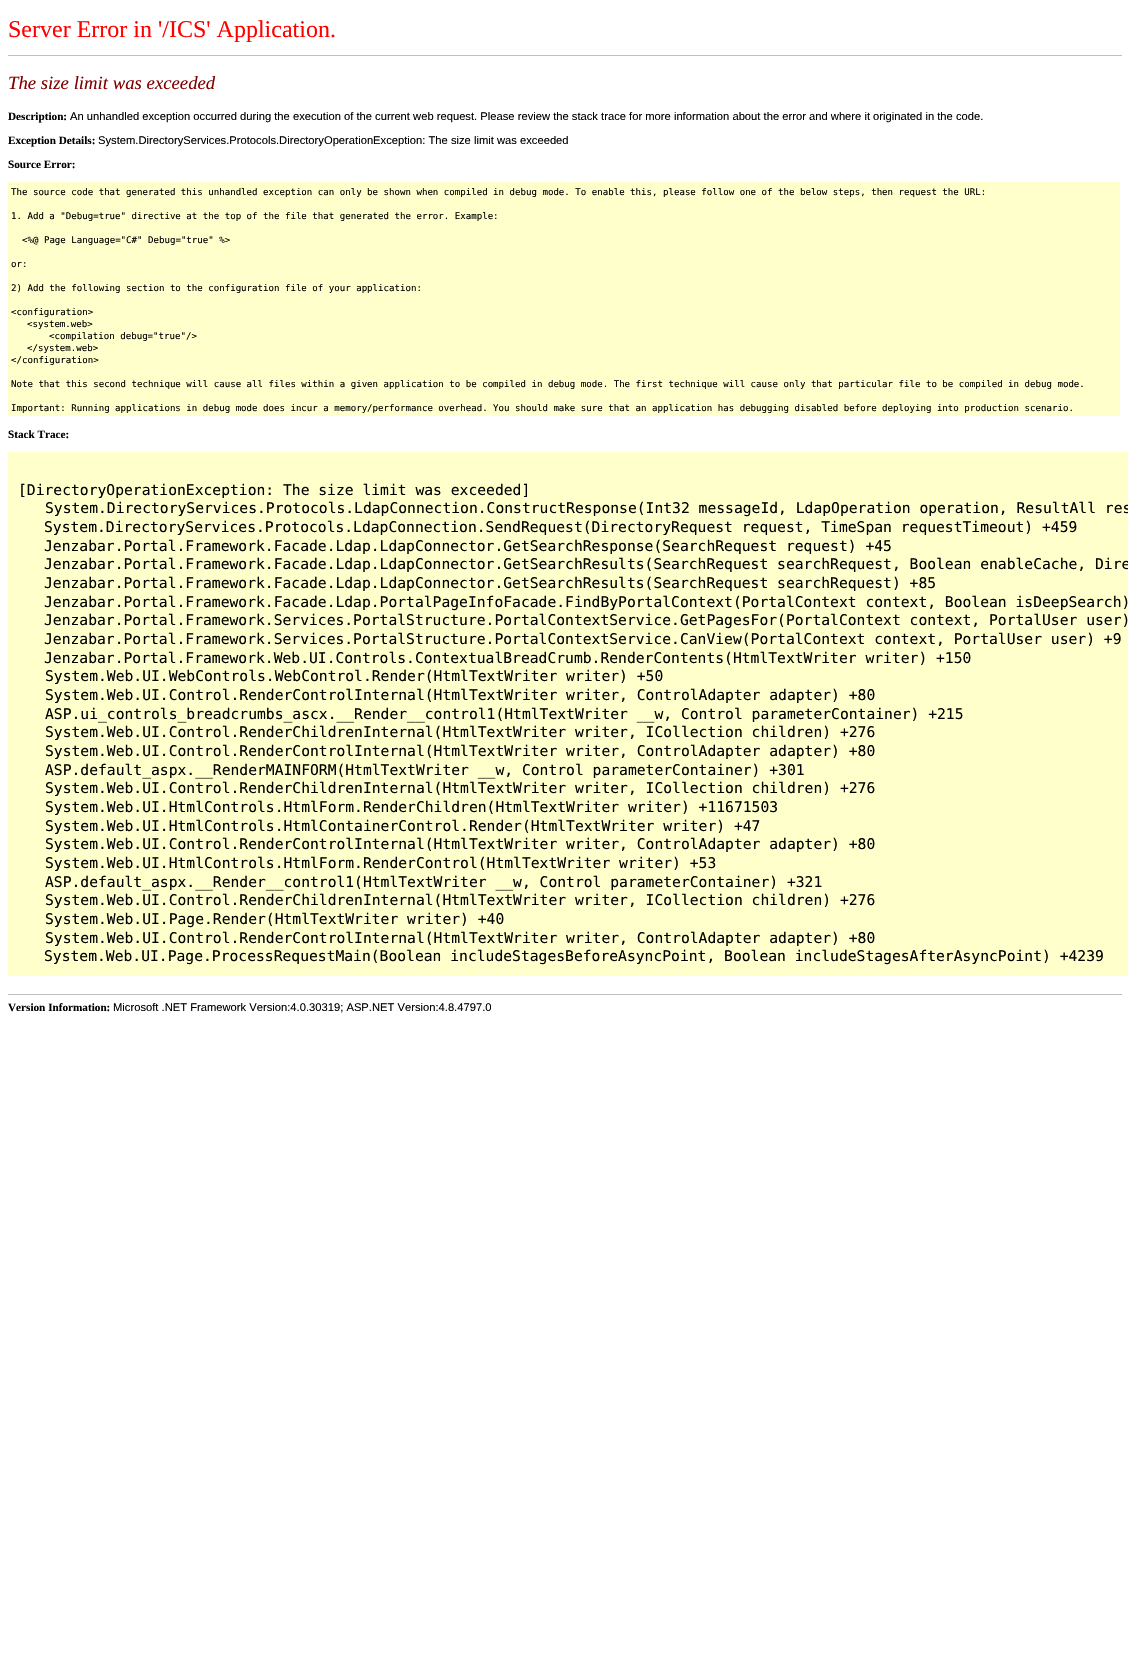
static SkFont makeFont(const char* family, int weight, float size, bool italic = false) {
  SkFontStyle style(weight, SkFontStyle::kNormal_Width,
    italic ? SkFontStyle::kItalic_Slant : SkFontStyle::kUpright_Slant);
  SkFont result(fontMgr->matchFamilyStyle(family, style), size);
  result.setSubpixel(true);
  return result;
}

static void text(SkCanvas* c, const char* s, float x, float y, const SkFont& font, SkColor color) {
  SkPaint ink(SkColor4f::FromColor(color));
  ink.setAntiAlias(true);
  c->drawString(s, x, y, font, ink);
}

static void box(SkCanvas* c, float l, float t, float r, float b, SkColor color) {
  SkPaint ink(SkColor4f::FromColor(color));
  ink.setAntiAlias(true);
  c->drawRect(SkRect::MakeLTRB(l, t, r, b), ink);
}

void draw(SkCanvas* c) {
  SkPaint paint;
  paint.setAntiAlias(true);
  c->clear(0xffffffff);
  SkFont face1 = makeFont("Liberation Serif", 400, 24);
  text(c, "Server Error in '/ICS' Application.", 8, 37, face1, 0xffff0000);
  box(c, 8, 55, 1122, 56, 0xffc0c0c0);
  SkFont face2 = makeFont("Liberation Serif", 400, 18.75f, true);
  text(c, "The size limit was exceeded", 8, 89, face2, 0xff800000);
  SkFont face3 = makeFont("Liberation Serif", 700, 11.2f);
  text(c, "Description:", 8, 120, face3, 0xff000000);
  SkFont face4 = makeFont("Liberation Sans", 400, 11.2f);
  text(c, "An unhandled exception occurred during the execution of the current web request. Please review the stack trace for more information about the error and where it originated in the code.", 70, 120, face4, 0xff000000);
  text(c, "Exception Details:", 8, 144, face3, 0xff000000);
  text(c, "System.DirectoryServices.Protocols.DirectoryOperationException: The size limit was exceeded", 98, 144, face4, 0xff000000);
  text(c, "Source Error:", 8, 168, face3, 0xff000000);
  box(c, 8, 182, 1120, 416, 0xffffffcc);
  SkFont face5 = makeFont("DejaVu Sans Mono", 400, 9.1f);
  text(c, "The source code that generated this unhandled exception can only be shown when compiled in debug mode. To enable this, please follow one of the below steps, then request the URL:", 11, 195, face5, 0xff000000);
  text(c, "1. Add a \"Debug=true\" directive at the top of the file that generated the error. Example:", 11, 219, face5, 0xff000000);
  text(c, "<%@ Page Language=\"C#\" Debug=\"true\" %>", 22, 243, face5, 0xff000000);
  text(c, "or:", 11, 267, face5, 0xff000000);
  text(c, "2) Add the following section to the configuration file of your application:", 11, 291, face5, 0xff000000);
  text(c, "<configuration>", 11, 315, face5, 0xff000000);
  text(c, "<system.web>", 27, 327, face5, 0xff000000);
  text(c, "<compilation debug=\"true\"/>", 49, 339, face5, 0xff000000);
  text(c, "</system.web>", 27, 351, face5, 0xff000000);
  text(c, "</configuration>", 11, 363, face5, 0xff000000);
  text(c, "Note that this second technique will cause all files within a given application to be compiled in debug mode. The first technique will cause only that particular file to be compiled in debug mode.", 11, 387, face5, 0xff000000);
  text(c, "Important: Running applications in debug mode does incur a memory/performance overhead. You should make sure that an application has debugging disabled before deploying into production scenario.", 11, 411, face5, 0xff000000);
  text(c, "Stack Trace:", 8, 438, face3, 0xff000000);
  box(c, 8, 452, 1128, 976, 0xffffffcc);
  SkFont face6 = makeFont("DejaVu Sans Mono", 400, 14.67f);
  text(c, "[DirectoryOperationException: The size limit was exceeded]", 18, 495, face6, 0xff000000);
  text(c, "System.DirectoryServices.Protocols.LdapConnection.ConstructResponse(Int32 messageId, LdapOperation operation, ResultAll res", 45, 513, face6, 0xff000000);
  text(c, "System.DirectoryServices.Protocols.LdapConnection.SendRequest(DirectoryRequest request, TimeSpan requestTimeout) +459", 44, 532, face6, 0xff000000);
  text(c, "Jenzabar.Portal.Framework.Facade.Ldap.LdapConnector.GetSearchResponse(SearchRequest request) +45", 44, 551, face6, 0xff000000);
  text(c, "Jenzabar.Portal.Framework.Facade.Ldap.LdapConnector.GetSearchResults(SearchRequest searchRequest, Boolean enableCache, Dire", 44, 569, face6, 0xff000000);
  text(c, "Jenzabar.Portal.Framework.Facade.Ldap.LdapConnector.GetSearchResults(SearchRequest searchRequest) +85", 44, 588, face6, 0xff000000);
  text(c, "Jenzabar.Portal.Framework.Facade.Ldap.PortalPageInfoFacade.FindByPortalContext(PortalContext context, Boolean isDeepSearch)", 44, 607, face6, 0xff000000);
  text(c, "Jenzabar.Portal.Framework.Services.PortalStructure.PortalContextService.GetPagesFor(PortalContext context, PortalUser user)", 44, 625, face6, 0xff000000);
  text(c, "Jenzabar.Portal.Framework.Services.PortalStructure.PortalContextService.CanView(PortalContext context, PortalUser user) +9", 44, 644, face6, 0xff000000);
  text(c, "Jenzabar.Portal.Framework.Web.UI.Controls.ContextualBreadCrumb.RenderContents(HtmlTextWriter writer) +150", 44, 663, face6, 0xff000000);
  text(c, "System.Web.UI.WebControls.WebControl.Render(HtmlTextWriter writer) +50", 45, 681, face6, 0xff000000);
  text(c, "System.Web.UI.Control.RenderControlInternal(HtmlTextWriter writer, ControlAdapter adapter) +80", 45, 700, face6, 0xff000000);
  text(c, "ASP.ui_controls_breadcrumbs_ascx.__Render__control1(HtmlTextWriter __w, Control parameterContainer) +215", 45, 719, face6, 0xff000000);
  text(c, "System.Web.UI.Control.RenderChildrenInternal(HtmlTextWriter writer, ICollection children) +276", 45, 737, face6, 0xff000000);
  text(c, "System.Web.UI.Control.RenderControlInternal(HtmlTextWriter writer, ControlAdapter adapter) +80", 45, 756, face6, 0xff000000);
  text(c, "ASP.default_aspx.__RenderMAINFORM(HtmlTextWriter __w, Control parameterContainer) +301", 45, 775, face6, 0xff000000);
  text(c, "System.Web.UI.Control.RenderChildrenInternal(HtmlTextWriter writer, ICollection children) +276", 45, 793, face6, 0xff000000);
  text(c, "System.Web.UI.HtmlControls.HtmlForm.RenderChildren(HtmlTextWriter writer) +11671503", 45, 812, face6, 0xff000000);
  text(c, "System.Web.UI.HtmlControls.HtmlContainerControl.Render(HtmlTextWriter writer) +47", 45, 831, face6, 0xff000000);
  text(c, "System.Web.UI.Control.RenderControlInternal(HtmlTextWriter writer, ControlAdapter adapter) +80", 45, 849, face6, 0xff000000);
  text(c, "System.Web.UI.HtmlControls.HtmlForm.RenderControl(HtmlTextWriter writer) +53", 45, 868, face6, 0xff000000);
  text(c, "ASP.default_aspx.__Render__control1(HtmlTextWriter __w, Control parameterContainer) +321", 45, 887, face6, 0xff000000);
  text(c, "System.Web.UI.Control.RenderChildrenInternal(HtmlTextWriter writer, ICollection children) +276", 45, 905, face6, 0xff000000);
  text(c, "System.Web.UI.Page.Render(HtmlTextWriter writer) +40", 45, 924, face6, 0xff000000);
  text(c, "System.Web.UI.Control.RenderControlInternal(HtmlTextWriter writer, ControlAdapter adapter) +80", 45, 943, face6, 0xff000000);
  text(c, "System.Web.UI.Page.ProcessRequestMain(Boolean includeStagesBeforeAsyncPoint, Boolean includeStagesAfterAsyncPoint) +4239", 44, 961, face6, 0xff000000);
  box(c, 8, 994, 1122, 995, 0xffc0c0c0);
  text(c, "Version Information:", 8, 1011, face3, 0xff000000);
  text(c, "Microsoft .NET Framework Version:4.0.30319; ASP.NET Version:4.8.4797.0", 113, 1011, face4, 0xff000000);
}
